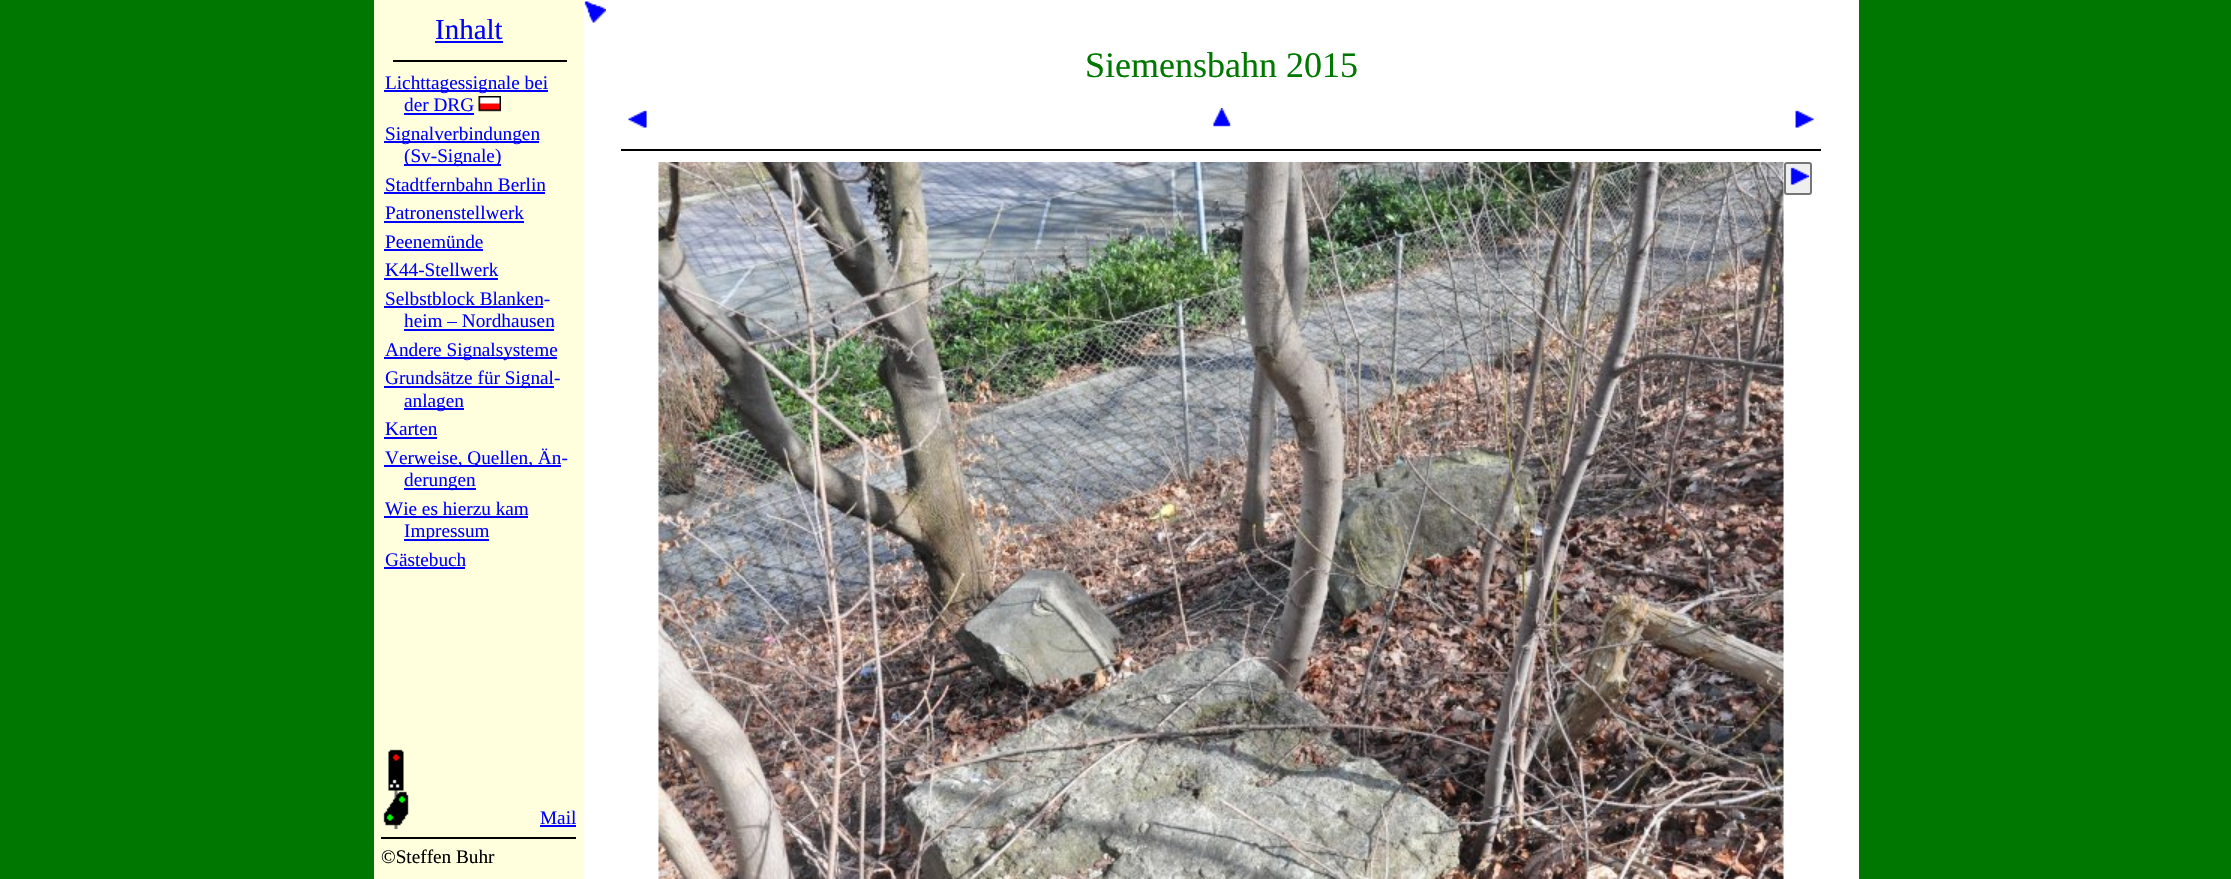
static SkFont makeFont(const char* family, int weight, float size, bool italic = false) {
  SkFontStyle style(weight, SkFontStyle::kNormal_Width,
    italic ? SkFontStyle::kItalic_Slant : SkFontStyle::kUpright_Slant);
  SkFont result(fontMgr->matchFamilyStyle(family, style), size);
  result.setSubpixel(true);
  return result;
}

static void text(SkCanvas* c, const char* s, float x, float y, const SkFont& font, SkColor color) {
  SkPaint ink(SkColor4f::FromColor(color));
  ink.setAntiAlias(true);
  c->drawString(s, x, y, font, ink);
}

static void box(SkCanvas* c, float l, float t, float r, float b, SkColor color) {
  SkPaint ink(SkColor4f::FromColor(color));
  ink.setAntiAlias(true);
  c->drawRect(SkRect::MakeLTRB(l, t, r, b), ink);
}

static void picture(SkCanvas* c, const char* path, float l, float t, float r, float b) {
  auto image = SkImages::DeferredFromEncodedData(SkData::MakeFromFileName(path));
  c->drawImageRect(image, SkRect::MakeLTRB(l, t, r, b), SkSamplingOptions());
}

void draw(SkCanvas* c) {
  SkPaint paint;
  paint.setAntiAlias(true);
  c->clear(0xff007700);
  box(c, 374, 0, 584, 879, 0xffffffdd);
  SkFont face1 = makeFont("Liberation Serif", 400, 29);
  text(c, "Inhalt", 435, 39, face1, 0xff0000ff);
  box(c, 435, 41, 503, 43, 0xff0000ff);
  box(c, 393, 60, 567, 62, 0xff000000);
  box(c, 384, 90, 548, 92, 0xff0000ff);
  SkFont face2 = makeFont("Liberation Serif", 400, 19.25f);
  text(c, "Lichttagessignale bei", 385, 89, face2, 0xff0000ff);
  text(c, "der DRG", 404, 111, face2, 0xff0000ff);
  box(c, 404, 113, 474, 115, 0xff0000ff);
  picture(c, "img_01.png", 478, 96, 501, 112);
  box(c, 384, 141, 539, 143, 0xff0000ff);
  text(c, "Signalverbindungen", 385, 140, face2, 0xff0000ff);
  box(c, 404, 164, 501, 166, 0xff0000ff);
  text(c, "(Sv-Signale)", 404, 162, face2, 0xff0000ff);
  text(c, "Stadtfernbahn Berlin", 385, 191, face2, 0xff0000ff);
  box(c, 384, 192, 545, 194, 0xff0000ff);
  text(c, "Patronenstellwerk", 385, 219, face2, 0xff0000ff);
  box(c, 384, 221, 524, 223, 0xff0000ff);
  text(c, "Peenemünde", 385, 248, face2, 0xff0000ff);
  box(c, 384, 249, 483, 251, 0xff0000ff);
  text(c, "K44-Stellwerk", 385, 276, face2, 0xff0000ff);
  box(c, 384, 278, 498, 280, 0xff0000ff);
  text(c, "Selbstblock Blanken-", 385, 305, face2, 0xff0000ff);
  box(c, 384, 306, 543, 308, 0xff0000ff);
  text(c, "heim – Nordhausen", 404, 327, face2, 0xff0000ff);
  box(c, 404, 329, 554, 331, 0xff0000ff);
  box(c, 384, 357, 557, 359, 0xff0000ff);
  text(c, "Andere Signalsysteme", 385, 356, face2, 0xff0000ff);
  box(c, 384, 386, 554, 388, 0xff0000ff);
  text(c, "Grundsätze für Signal-", 385, 384, face2, 0xff0000ff);
  box(c, 404, 408, 464, 410, 0xff0000ff);
  text(c, "anlagen", 404, 407, face2, 0xff0000ff);
  text(c, "Karten", 385, 435, face2, 0xff0000ff);
  box(c, 384, 437, 437, 439, 0xff0000ff);
  box(c, 384, 465, 561, 467, 0xff0000ff);
  text(c, "Verweise, Quellen, Än-", 385, 464, face2, 0xff0000ff);
  box(c, 404, 488, 476, 490, 0xff0000ff);
  text(c, "derungen", 404, 486, face2, 0xff0000ff);
  text(c, "Wie es hierzu kam", 385, 515, face2, 0xff0000ff);
  box(c, 384, 516, 528, 518, 0xff0000ff);
  box(c, 404, 539, 489, 541, 0xff0000ff);
  text(c, "Impressum", 404, 537, face2, 0xff0000ff);
  text(c, "Gästebuch", 385, 566, face2, 0xff0000ff);
  box(c, 384, 567, 465, 569, 0xff0000ff);
  picture(c, "img_02.png", 383, 749, 409, 829);
  text(c, "Mail", 540, 824, face2, 0xff0000ff);
  box(c, 540, 825, 576, 827, 0xff0000ff);
  box(c, 381, 837, 576, 839, 0xff000000);
  text(c, "©Steffen Buhr", 381, 863, face2, 0xff000000);
  box(c, 584, 0, 1859, 879, 0xffffffff);
  picture(c, "img_03.png", 584, 1, 606, 23);
  SkFont face3 = makeFont("Liberation Serif", 400, 36);
  text(c, "Siemensbahn 2015", 1085, 77, face3, 0xff007700);
  picture(c, "img_04.png", 628, 110, 647, 128);
  picture(c, "img_05.png", 1213, 108, 1231, 127);
  picture(c, "img_06.png", 1795, 110, 1814, 128);
  box(c, 621, 149, 1821, 151, 0xff000000);
  picture(c, "img_07.png", 658, 162, 1784, 879);
  paint.setColor(0xffefefef);
  c->drawRoundRect(SkRect::MakeLTRB(1785, 163, 1811, 194), 2, 2, paint);
  paint.setStyle(SkPaint::kStroke_Style);
  paint.setStrokeWidth(2);
  paint.setColor(0xff767676);
  c->drawRoundRect(SkRect::MakeLTRB(1785, 163, 1811, 194), 2, 2, paint);
  picture(c, "img_08.png", 1790, 167, 1809, 185);
}
